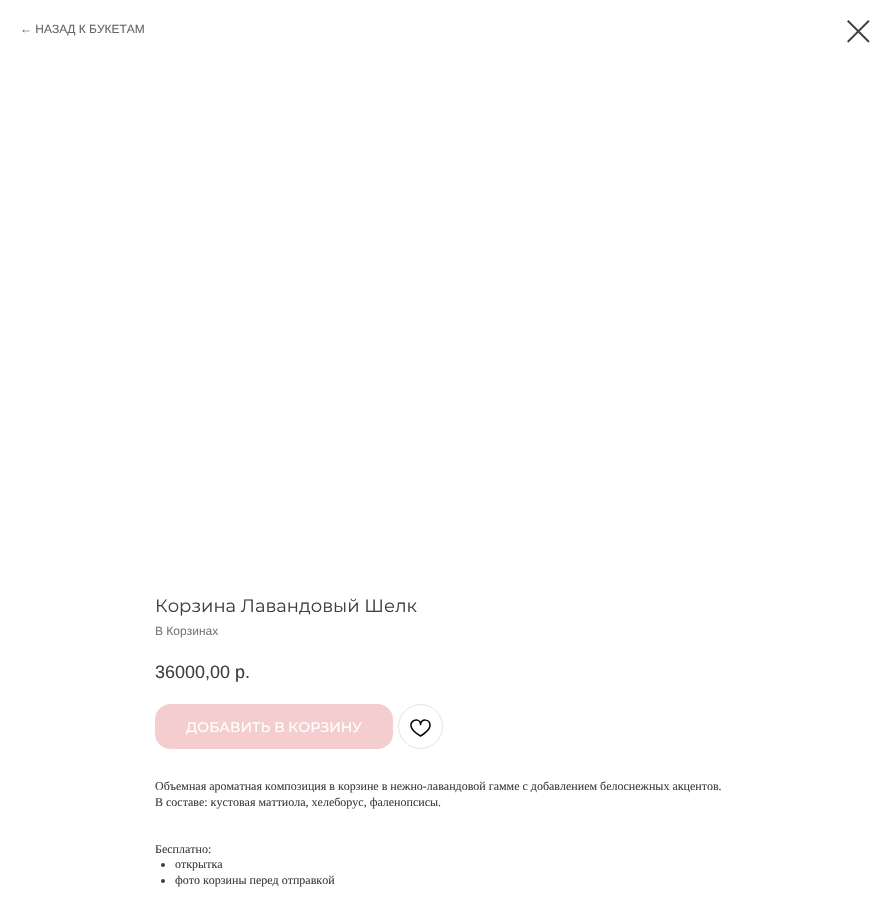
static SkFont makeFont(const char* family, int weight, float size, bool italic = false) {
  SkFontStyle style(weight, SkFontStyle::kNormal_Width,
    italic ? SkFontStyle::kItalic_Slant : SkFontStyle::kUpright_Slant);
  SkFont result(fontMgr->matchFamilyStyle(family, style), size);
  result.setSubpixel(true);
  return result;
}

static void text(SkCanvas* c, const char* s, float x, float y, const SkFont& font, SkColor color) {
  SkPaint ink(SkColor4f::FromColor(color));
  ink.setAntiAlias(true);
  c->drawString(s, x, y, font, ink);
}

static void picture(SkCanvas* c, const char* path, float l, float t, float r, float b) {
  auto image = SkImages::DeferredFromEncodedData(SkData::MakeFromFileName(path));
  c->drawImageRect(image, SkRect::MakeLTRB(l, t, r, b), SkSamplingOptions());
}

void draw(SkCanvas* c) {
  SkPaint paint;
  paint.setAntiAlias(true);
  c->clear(0xffffffff);
  SkFont face1 = makeFont("Liberation Sans", 400, 12);
  text(c, "← НАЗАД К БУКЕТАМ", 20, 33, face1, 0xff686565);
  picture(c, "img_01.png", 847, 20, 870, 43);
  SkFont face2 = makeFont("Montserrat", 400, 18);
  text(c, "Корзина Лавандовый Шелк", 155, 612, face2, 0xff423e3e);
  text(c, "В Корзинах", 155, 635, face1, 0xff777777);
  SkFont face3 = makeFont("Liberation Sans", 400, 18);
  text(c, "36000,00 р.", 155, 678, face3, 0xff423e3e);
  paint.setColor(0xfff4cecf);
  c->drawRoundRect(SkRect::MakeLTRB(155.5f, 704.5f, 392.5f, 748.5f), 14.5f, 14.5f, paint);
  paint.setStyle(SkPaint::kStroke_Style);
  paint.setStrokeWidth(1);
  c->drawRoundRect(SkRect::MakeLTRB(155.5f, 704.5f, 392.5f, 748.5f), 14.5f, 14.5f, paint);
  SkFont face4 = makeFont("Montserrat", 500, 14);
  text(c, "ДОБАВИТЬ В КОРЗИНУ", 186, 732, face4, 0xffffffff);
  paint.setColor(0xffe4e4e4);
  c->drawCircle(420.5f, 726.5f, 22, paint);
  paint.setStrokeWidth(1.5f);
  paint.setStrokeJoin(SkPaint::kRound_Join);
  paint.setColor(0xff000000);
  c->drawPath(SkPathBuilder().moveTo(430, 725.5f).cubicTo(430, 730.5f, 420.5f, 736, 420.5f, 736).cubicTo(399, 723.5f, 420.5f, 714, 420.5f, 724.5f).cubicTo(420.5f, 718.5f, 430, 718.5f, 430, 725.5f).close().detach(), paint);
  SkFont face5 = makeFont("Liberation Serif", 400, 12);
  text(c, "Объемная ароматная композиция в корзине в нежно-лавандовой гамме с добавлением белоснежных акцентов.", 155, 790, face5, 0xff423e3e);
  text(c, "В составе: кустовая маттиола, хелеборус, фаленопсисы.", 155, 806, face5, 0xff423e3e);
  text(c, "Бесплатно:", 155, 853, face5, 0xff423e3e);
  paint.setStyle(SkPaint::kFill_Style);
  paint.setColor(0xff423e3e);
  c->drawCircle(163, 865, 2, paint);
  text(c, "открытка", 175, 868, face5, 0xff423e3e);
  c->drawCircle(163, 881, 2, paint);
  text(c, "фото корзины перед отправкой", 175, 884, face5, 0xff423e3e);
}
